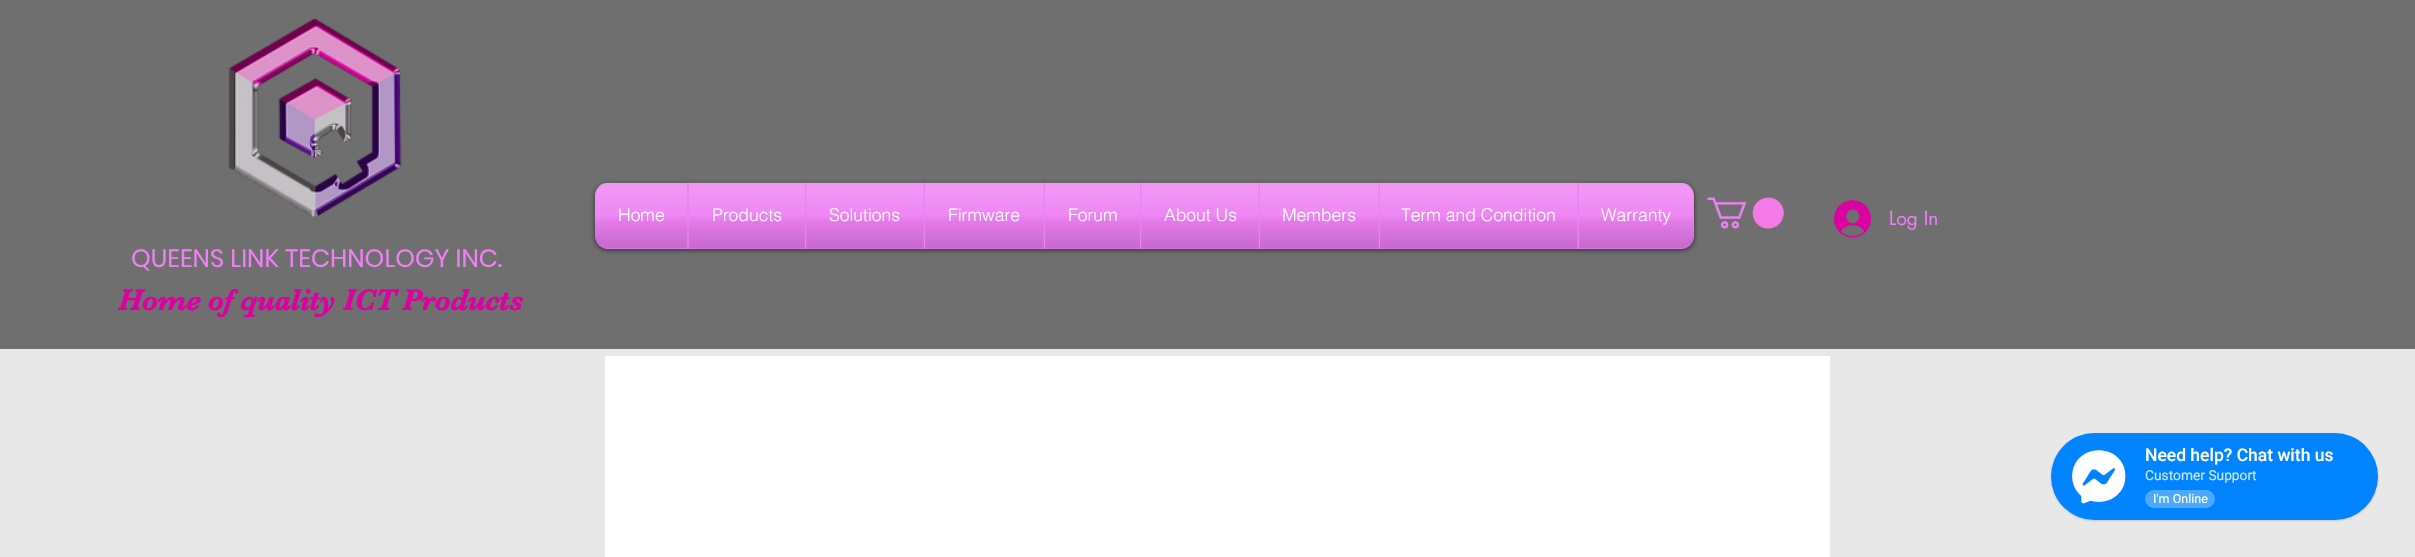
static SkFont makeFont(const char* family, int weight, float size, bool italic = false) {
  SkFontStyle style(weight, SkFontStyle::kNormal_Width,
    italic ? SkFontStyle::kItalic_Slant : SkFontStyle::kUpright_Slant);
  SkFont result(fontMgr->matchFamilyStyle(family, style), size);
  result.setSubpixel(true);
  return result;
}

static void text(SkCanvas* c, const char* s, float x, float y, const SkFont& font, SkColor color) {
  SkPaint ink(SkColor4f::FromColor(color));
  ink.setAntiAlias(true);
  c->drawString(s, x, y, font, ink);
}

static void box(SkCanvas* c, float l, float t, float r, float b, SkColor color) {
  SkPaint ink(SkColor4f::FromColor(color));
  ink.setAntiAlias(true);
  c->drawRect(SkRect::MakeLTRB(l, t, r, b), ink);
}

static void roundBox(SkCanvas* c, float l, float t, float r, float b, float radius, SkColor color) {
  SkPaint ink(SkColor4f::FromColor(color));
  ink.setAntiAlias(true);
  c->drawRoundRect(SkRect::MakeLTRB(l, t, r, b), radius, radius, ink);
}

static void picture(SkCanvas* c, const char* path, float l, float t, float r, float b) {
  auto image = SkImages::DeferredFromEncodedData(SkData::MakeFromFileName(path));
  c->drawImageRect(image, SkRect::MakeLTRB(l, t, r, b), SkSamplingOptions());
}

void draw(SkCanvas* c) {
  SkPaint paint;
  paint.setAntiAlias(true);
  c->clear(0xff6f6f6f);
  picture(c, "img_01.png", 228, 18, 402, 219);
  paint.setColor(0x99000000);
  paint.setMaskFilter(SkMaskFilter::MakeBlur(kNormal_SkBlurStyle, 2.5f));
  c->drawRoundRect(SkRect::MakeLTRB(595, 184, 1694, 250), 13, 13, paint);
  paint.setMaskFilter(nullptr);
  picture(c, "img_02.png", 595, 182, 1694, 196);
  picture(c, "img_03.png", 595, 236, 1694, 249);
  paint.setColor(0xffee7ff4);
  c->drawPath(SkPathBuilder().moveTo(608, 183).lineTo(688, 183).lineTo(688, 249).lineTo(608, 249).cubicTo(601, 249, 595, 243, 595, 236).lineTo(595, 196).cubicTo(595, 189, 601, 183, 608, 183).close().detach(), paint);
  SkFont face1 = makeFont("helvetica", 300, 17.5f);
  text(c, "Home", 618, 221, face1, 0xffffffff);
  picture(c, "img_04.png", 595, 183, 688, 221);
  picture(c, "img_05.png", 595, 217, 688, 249);
  box(c, 688, 183, 1578, 249, 0xffee7ff4);
  text(c, "Products", 712, 221, face1, 0xffffffff);
  picture(c, "img_06.png", 688, 182, 805, 221);
  picture(c, "img_07.png", 688, 217, 805, 249);
  text(c, "Solutions", 829, 221, face1, 0xffffffff);
  picture(c, "img_08.png", 806, 182, 924, 221);
  picture(c, "img_09.png", 806, 217, 924, 249);
  text(c, "Firmware", 948, 221, face1, 0xffffffff);
  picture(c, "img_10.png", 925, 182, 1044, 221);
  picture(c, "img_11.png", 925, 217, 1044, 249);
  text(c, "Forum", 1068, 221, face1, 0xffffffff);
  picture(c, "img_12.png", 1045, 182, 1140, 221);
  picture(c, "img_13.png", 1045, 217, 1140, 249);
  text(c, "About Us", 1164, 221, face1, 0xffffffff);
  picture(c, "img_14.png", 1141, 182, 1259, 221);
  picture(c, "img_15.png", 1141, 217, 1259, 249);
  text(c, "Members", 1282, 221, face1, 0xffffffff);
  picture(c, "img_16.png", 1260, 182, 1379, 221);
  picture(c, "img_17.png", 1260, 217, 1379, 249);
  text(c, "Term and Condition", 1401, 221, face1, 0xffffffff);
  picture(c, "img_18.png", 1380, 182, 1578, 221);
  picture(c, "img_19.png", 1380, 217, 1578, 249);
  c->drawPath(SkPathBuilder().moveTo(1578, 183).lineTo(1681, 183).cubicTo(1688, 183, 1694, 189, 1694, 196).lineTo(1694, 236).cubicTo(1694, 243, 1688, 249, 1681, 249).lineTo(1578, 249).close().detach(), paint);
  text(c, "Warranty", 1601, 221, face1, 0xffffffff);
  picture(c, "img_20.png", 1579, 183, 1694, 221);
  picture(c, "img_21.png", 1579, 217, 1694, 249);
  picture(c, "img_22.png", 1707, 197, 1784, 229);
  picture(c, "img_23.png", 1834, 200, 1871, 238);
  SkFont face2 = makeFont("futura", 400, 19);
  text(c, "Log In", 1889, 225, face2, 0xffee7ff4);
  SkFont face3 = makeFont("Poppins", 400, 25);
  text(c, "QUEENS LINK TECHNOLOGY INC.", 131, 267, face3, 0xffee7ff4);
  SkFont face4 = makeFont("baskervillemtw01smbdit", 700, 30);
  text(c, "Home of quality ICT Products", 118, 310, face4, 0xffdb00a1);
  box(c, 0, 349, 2415, 557, 0xffe8e8e8);
  box(c, 605, 356, 1830, 557, 0xffffffff);
  paint.setColor(0x26000000);
  paint.setMaskFilter(SkMaskFilter::MakeBlur(kNormal_SkBlurStyle, 1));
  c->drawRoundRect(SkRect::MakeLTRB(2051, 434, 2378, 521), 43.5f, 43.5f, paint);
  paint.setMaskFilter(nullptr);
  roundBox(c, 2051, 433, 2378, 520, 43.5f, 0xff0084ff);
  picture(c, "img_24.png", 2072, 450, 2126, 504);
  SkFont face5 = makeFont("Roboto", 500, 17.5f);
  text(c, "Need help? Chat with us", 2145, 461, face5, 0xffffffff);
  SkFont face6 = makeFont("Roboto", 400, 13.75f);
  text(c, "Customer Support", 2145, 480, face6, 0xffcce6ff);
  roundBox(c, 2145, 490, 2215, 508, 9, 0xff4da9ff);
  SkFont face7 = makeFont("Roboto", 400, 12.5f);
  text(c, "I'm Online", 2153, 503, face7, 0xffffffff);
}
